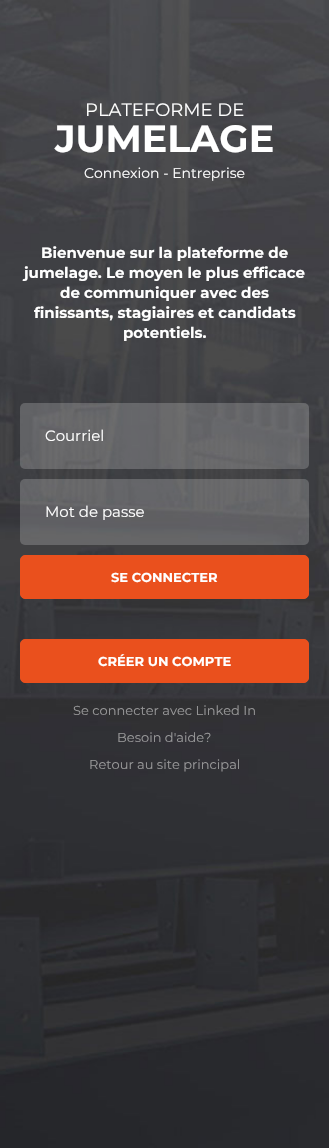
static SkFont makeFont(const char* family, int weight, float size, bool italic = false) {
  SkFontStyle style(weight, SkFontStyle::kNormal_Width,
    italic ? SkFontStyle::kItalic_Slant : SkFontStyle::kUpright_Slant);
  SkFont result(fontMgr->matchFamilyStyle(family, style), size);
  result.setSubpixel(true);
  return result;
}

static void text(SkCanvas* c, const char* s, float x, float y, const SkFont& font, SkColor color) {
  SkPaint ink(SkColor4f::FromColor(color));
  ink.setAntiAlias(true);
  c->drawString(s, x, y, font, ink);
}

static void roundBox(SkCanvas* c, float l, float t, float r, float b, float radius, SkColor color) {
  SkPaint ink(SkColor4f::FromColor(color));
  ink.setAntiAlias(true);
  c->drawRoundRect(SkRect::MakeLTRB(l, t, r, b), radius, radius, ink);
}

static void picture(SkCanvas* c, const char* path, float l, float t, float r, float b) {
  auto image = SkImages::DeferredFromEncodedData(SkData::MakeFromFileName(path));
  c->drawImageRect(image, SkRect::MakeLTRB(l, t, r, b), SkSamplingOptions());
}

void draw(SkCanvas* c) {
  SkPaint paint;
  paint.setAntiAlias(true);
  c->clear(0xffffffff);
  picture(c, "img_01.png", 0, 0, 329, 1148);
  SkFont face1 = makeFont("Montserrat", 400, 18);
  text(c, "PLATEFORME DE", 85, 116, face1, 0xffffffff);
  SkFont face2 = makeFont("Montserrat", 700, 38);
  text(c, "JUMELAGE", 55, 152, face2, 0xffffffff);
  SkFont face3 = makeFont("Montserrat", 400, 14);
  text(c, "Connexion - Entreprise", 84, 178, face3, 0xffffffff);
  SkFont face4 = makeFont("Montserrat", 700, 15);
  text(c, "Bienvenue sur la plateforme de", 41, 258, face4, 0xffffffff);
  text(c, "jumelage. Le moyen le plus efficace", 24, 278, face4, 0xffffffff);
  text(c, "de communiquer avec des", 60, 298, face4, 0xffffffff);
  text(c, "finissants, stagiaires et candidats", 34, 318, face4, 0xffffffff);
  text(c, "potentiels.", 123, 338, face4, 0xffffffff);
  roundBox(c, 20, 403, 309, 469, 5, 0x33ffffff);
  SkFont face5 = makeFont("Montserrat", 400, 15);
  text(c, "Courriel", 45, 441, face5, 0xffffffff);
  roundBox(c, 20, 479, 309, 545, 5, 0x33ffffff);
  text(c, "Mot de passe", 45, 517, face5, 0xffffffff);
  paint.setColor(0xffea501d);
  c->drawRoundRect(SkRect::MakeLTRB(20.5f, 555.5f, 308.5f, 598.5f), 4.5f, 4.5f, paint);
  paint.setStyle(SkPaint::kStroke_Style);
  paint.setStrokeWidth(1);
  c->drawRoundRect(SkRect::MakeLTRB(20.5f, 555.5f, 308.5f, 598.5f), 4.5f, 4.5f, paint);
  SkFont face6 = makeFont("Montserrat", 700, 13);
  text(c, "SE CONNECTER", 111, 582, face6, 0xffffffff);
  paint.setStyle(SkPaint::kFill_Style);
  c->drawRoundRect(SkRect::MakeLTRB(20.5f, 639.5f, 308.5f, 682.5f), 4.5f, 4.5f, paint);
  paint.setStyle(SkPaint::kStroke_Style);
  c->drawRoundRect(SkRect::MakeLTRB(20.5f, 639.5f, 308.5f, 682.5f), 4.5f, 4.5f, paint);
  text(c, "CRÉER UN COMPTE", 98, 666, face6, 0xffffffff);
  SkFont face7 = makeFont("Montserrat", 400, 13);
  text(c, "Se connecter avec Linked In", 73, 715, face7, 0xff989899);
  text(c, "Besoin d'aide?", 117, 742, face7, 0xff989899);
  text(c, "Retour au site principal", 89, 769, face7, 0xff989899);
}
